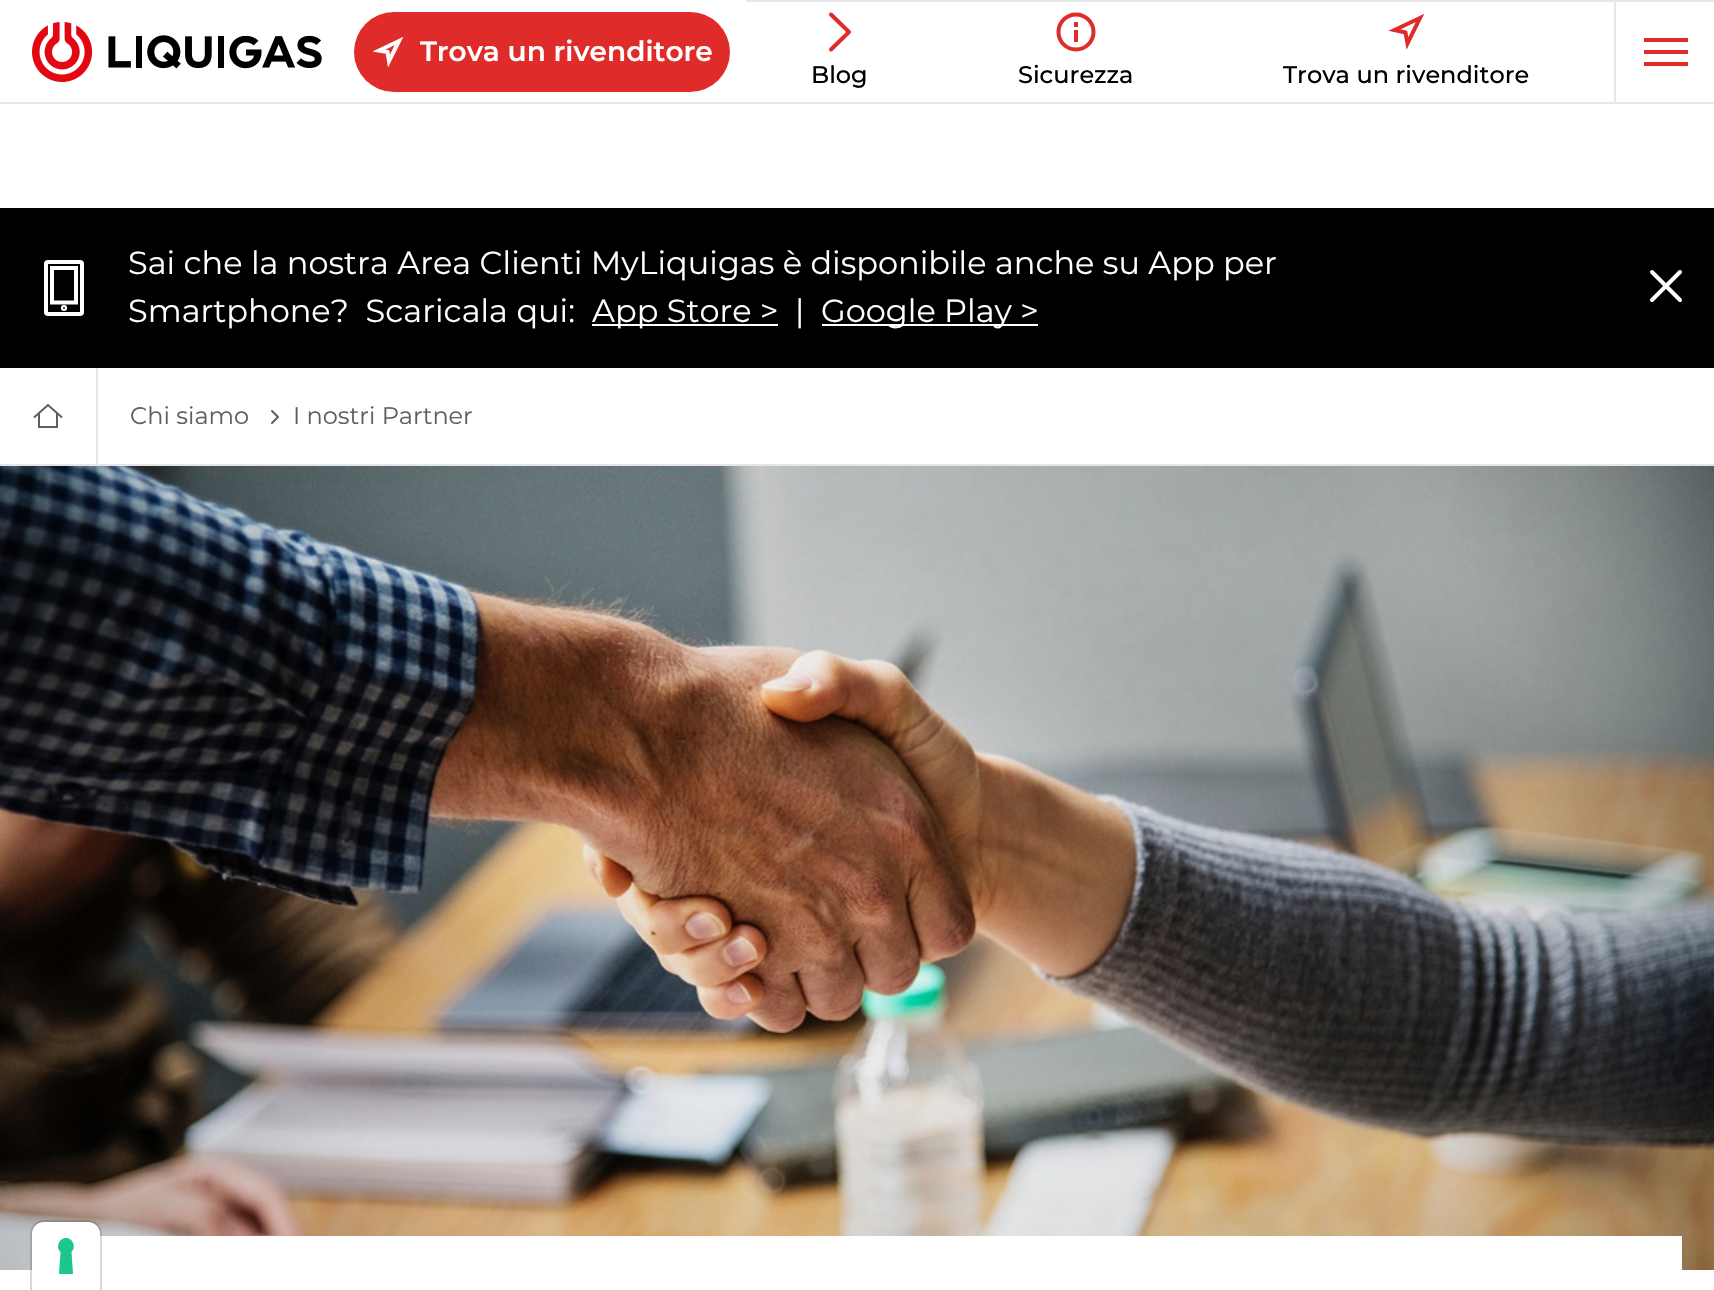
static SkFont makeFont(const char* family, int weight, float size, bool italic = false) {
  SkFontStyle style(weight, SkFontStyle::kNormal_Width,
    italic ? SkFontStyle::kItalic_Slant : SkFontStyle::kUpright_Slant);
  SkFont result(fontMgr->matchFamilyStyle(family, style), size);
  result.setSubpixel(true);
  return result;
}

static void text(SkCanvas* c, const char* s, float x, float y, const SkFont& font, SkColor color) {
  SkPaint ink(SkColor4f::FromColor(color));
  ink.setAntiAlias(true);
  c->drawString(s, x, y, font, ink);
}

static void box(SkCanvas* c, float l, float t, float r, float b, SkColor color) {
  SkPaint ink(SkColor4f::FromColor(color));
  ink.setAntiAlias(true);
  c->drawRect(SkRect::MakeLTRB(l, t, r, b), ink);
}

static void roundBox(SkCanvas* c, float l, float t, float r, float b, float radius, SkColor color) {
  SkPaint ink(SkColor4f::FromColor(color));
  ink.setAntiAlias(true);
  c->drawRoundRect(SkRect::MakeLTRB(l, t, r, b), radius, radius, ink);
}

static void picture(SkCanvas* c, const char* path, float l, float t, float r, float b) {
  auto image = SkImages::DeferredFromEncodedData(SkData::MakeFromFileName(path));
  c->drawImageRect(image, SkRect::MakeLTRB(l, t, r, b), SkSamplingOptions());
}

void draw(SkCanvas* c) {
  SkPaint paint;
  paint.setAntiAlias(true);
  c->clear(0xffffffff);
  box(c, 0, 102, 1714, 104, 0xffe6e6e6);
  picture(c, "img_01.png", 32, 22, 322, 82);
  roundBox(c, 354, 12, 730, 92, 40, 0xffdf2b2a);
  paint.setStyle(SkPaint::kStroke_Style);
  paint.setStrokeWidth(4);
  paint.setColor(0xffffffff);
  c->drawPath(SkPathBuilder().moveTo(387.5f, 52).lineTo(389, 61).lineTo(399, 41).lineTo(379, 50.5f).close().detach(), paint);
  SkFont face1 = makeFont("Montserrat", 600, 28);
  text(c, "Trova un rivenditore", 420, 61, face1, 0xffffffff);
  box(c, 746, 0, 1714, 2, 0xffe6e6e6);
  paint.setStrokeCap(SkPaint::kRound_Cap);
  paint.setStrokeJoin(SkPaint::kRound_Join);
  paint.setColor(0xffdf2b2a);
  c->drawPath(SkPathBuilder().moveTo(831, 14.5f).lineTo(849, 32).lineTo(831, 49.5f).detach(), paint);
  SkFont face2 = makeFont("Montserrat", 500, 24);
  text(c, "Blog", 811, 83, face2, 0xff000000);
  paint.setStrokeCap(SkPaint::kButt_Cap);
  paint.setStrokeJoin(SkPaint::kMiter_Join);
  c->drawPath(SkPathBuilder().moveTo(1076, 27).lineTo(1076, 22).detach(), paint);
  box(c, 1074, 30, 1078, 42, 0xffdf2b2a);
  c->drawCircle(1076, 32, 17.5f, paint);
  text(c, "Sicurezza", 1018, 83, face2, 0xff000000);
  c->drawPath(SkPathBuilder().moveTo(1405.5f, 32.5f).lineTo(1407.5f, 43.5f).lineTo(1420, 18).lineTo(1394.5f, 30).close().detach(), paint);
  text(c, "Trova un rivenditore", 1283, 83, face2, 0xff000000);
  box(c, 1614, 2, 1616, 102, 0xffe6e6e6);
  box(c, 1644, 38, 1688, 42, 0xffdf2b2a);
  box(c, 1644, 50, 1688, 54, 0xffdf2b2a);
  box(c, 1644, 62, 1688, 66, 0xffdf2b2a);
  box(c, 0, 208, 1714, 368, 0xff000000);
  paint.setColor(0xffffffff);
  c->drawRoundRect(SkRect::MakeLTRB(46, 262, 82, 314), 2, 2, paint);
  c->drawPath(SkPathBuilder().moveTo(52, 268).lineTo(76, 268).lineTo(76, 302.5f).lineTo(52, 302.5f).close().moveTo(64, 307).cubicTo(65.5f, 307, 65.5f, 309, 64, 309).cubicTo(62.5f, 309, 62.5f, 307, 64, 307).close().detach(), paint);
  SkFont face3 = makeFont("Montserrat", 400, 32);
  text(c, "Sai che la nostra Area Clienti MyLiquigas è disponibile anche su App per", 128, 274, face3, 0xffffffff);
  text(c, "Smartphone?  Scaricala qui:", 128, 322, face3, 0xffffffff);
  box(c, 592, 324, 778, 326, 0xffffffff);
  text(c, "App Store >", 592, 322, face3, 0xffffffff);
  text(c, "|", 795, 322, face3, 0xffffffff);
  box(c, 822, 324, 1038, 326, 0xffffffff);
  text(c, "Google Play >", 821, 322, face3, 0xffffffff);
  paint.setStrokeCap(SkPaint::kRound_Cap);
  c->drawPath(SkPathBuilder().moveTo(1652, 272).lineTo(1680, 300).moveTo(1680, 272).lineTo(1652, 300).detach(), paint);
  box(c, 0, 464, 1714, 466, 0xffe6e6e6);
  box(c, 96, 368, 98, 464, 0xffe6e6e6);
  paint.setStrokeWidth(2);
  paint.setStrokeCap(SkPaint::kButt_Cap);
  paint.setColor(0xff5f5f5f);
  c->drawPath(SkPathBuilder().moveTo(57, 413).lineTo(57, 427).lineTo(39, 427).lineTo(39, 413).detach(), paint);
  paint.setStrokeCap(SkPaint::kRound_Cap);
  c->drawPath(SkPathBuilder().moveTo(34.5f, 417).lineTo(48, 405).lineTo(61.5f, 417).detach(), paint);
  SkFont face4 = makeFont("Montserrat", 400, 24);
  text(c, "Chi siamo", 130, 424, face4, 0xff5f5f5f);
  paint.setStrokeJoin(SkPaint::kRound_Join);
  c->drawPath(SkPathBuilder().moveTo(272, 411).lineTo(278, 417).lineTo(272, 423).detach(), paint);
  text(c, "I nostri Partner", 293, 424, face4, 0xff5f5f5f);
  picture(c, "img_02.png", 0, 466, 1714, 1270);
  box(c, 100, 1236, 1682, 1270, 0xffffffff);
  paint.setStrokeCap(SkPaint::kButt_Cap);
  paint.setStrokeJoin(SkPaint::kMiter_Join);
  paint.setColor(0x26000000);
  c->drawPath(SkPathBuilder().moveTo(44, 1221).lineTo(88, 1221).cubicTo(95, 1221, 101, 1227, 101, 1234).lineTo(101, 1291).lineTo(31, 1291).lineTo(31, 1234).cubicTo(31, 1227, 37, 1221, 44, 1221).close().detach(), paint);
  paint.setStyle(SkPaint::kFill_Style);
  paint.setColor(0xffffffff);
  c->drawPath(SkPathBuilder().moveTo(44, 1222).lineTo(88, 1222).cubicTo(94.5f, 1222, 100, 1227.5f, 100, 1234).lineTo(100, 1290).lineTo(32, 1290).lineTo(32, 1234).cubicTo(32, 1227.5f, 37.5f, 1222, 44, 1222).close().detach(), paint);
  paint.setColor(0xff1cc691);
  c->drawPath(SkPathBuilder(SkPathFillType::kEvenOdd).moveTo(66, 1238).cubicTo(73, 1238, 76.5f, 1247.5f, 71.5f, 1252).lineTo(73, 1274).lineTo(59, 1274).lineTo(60.5f, 1252).cubicTo(55.5f, 1247.5f, 59, 1238, 66, 1238).close().detach(), paint);
}
